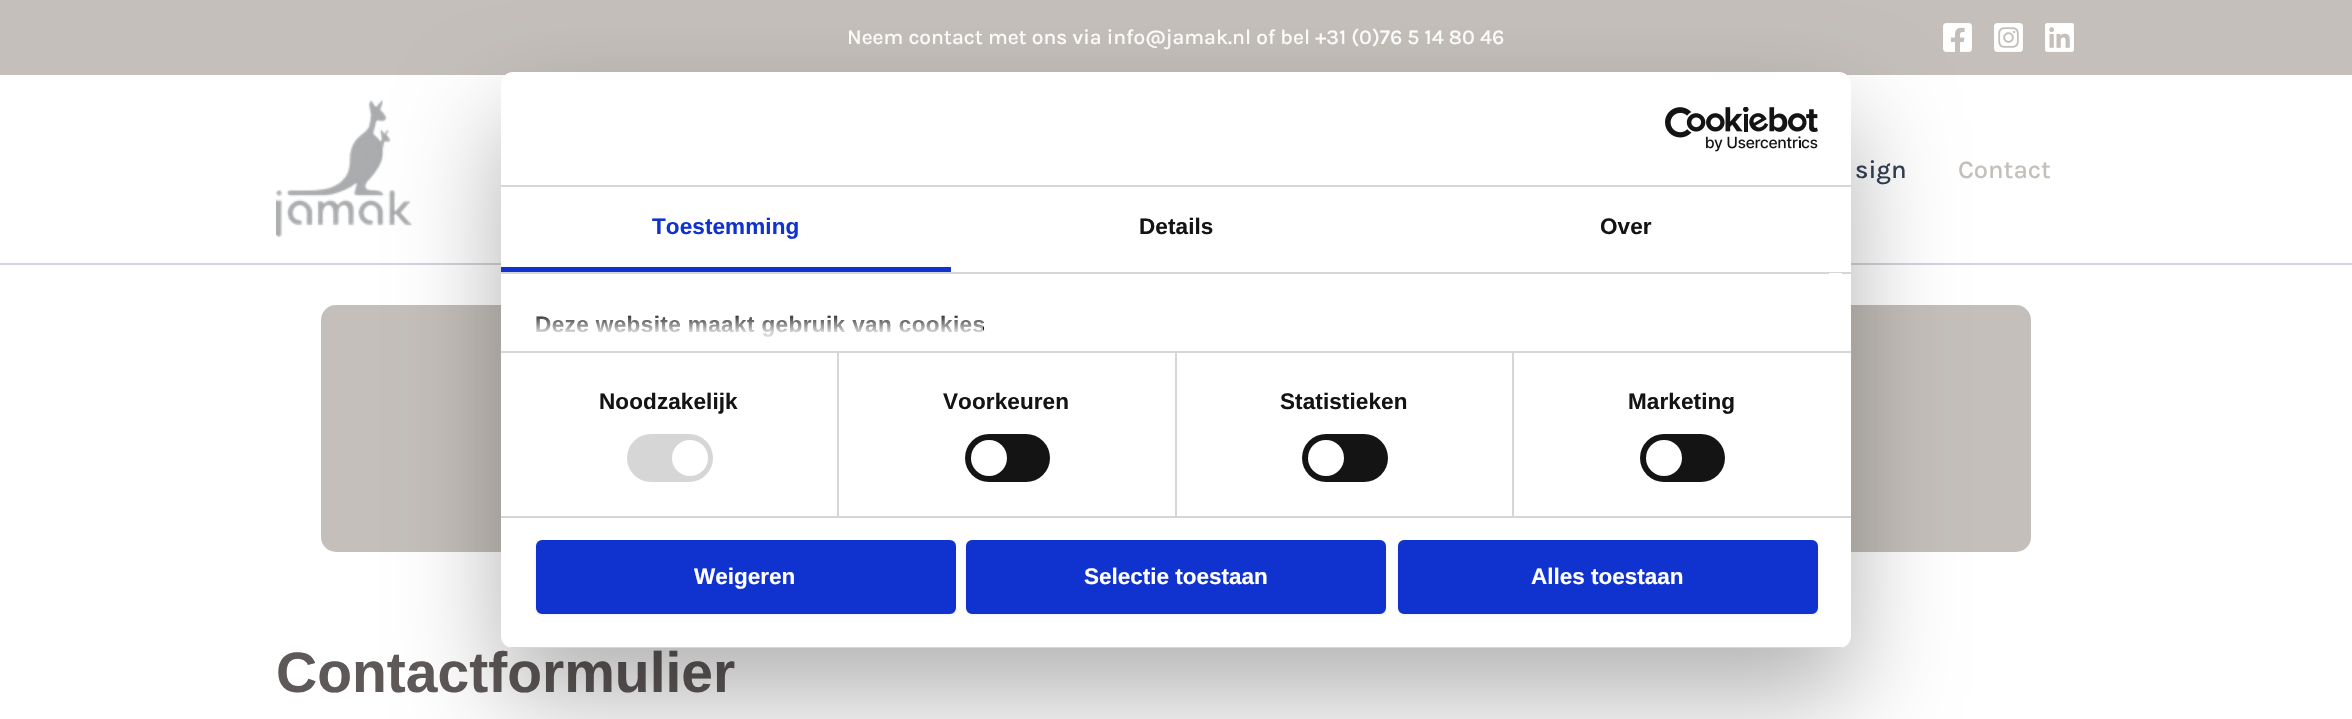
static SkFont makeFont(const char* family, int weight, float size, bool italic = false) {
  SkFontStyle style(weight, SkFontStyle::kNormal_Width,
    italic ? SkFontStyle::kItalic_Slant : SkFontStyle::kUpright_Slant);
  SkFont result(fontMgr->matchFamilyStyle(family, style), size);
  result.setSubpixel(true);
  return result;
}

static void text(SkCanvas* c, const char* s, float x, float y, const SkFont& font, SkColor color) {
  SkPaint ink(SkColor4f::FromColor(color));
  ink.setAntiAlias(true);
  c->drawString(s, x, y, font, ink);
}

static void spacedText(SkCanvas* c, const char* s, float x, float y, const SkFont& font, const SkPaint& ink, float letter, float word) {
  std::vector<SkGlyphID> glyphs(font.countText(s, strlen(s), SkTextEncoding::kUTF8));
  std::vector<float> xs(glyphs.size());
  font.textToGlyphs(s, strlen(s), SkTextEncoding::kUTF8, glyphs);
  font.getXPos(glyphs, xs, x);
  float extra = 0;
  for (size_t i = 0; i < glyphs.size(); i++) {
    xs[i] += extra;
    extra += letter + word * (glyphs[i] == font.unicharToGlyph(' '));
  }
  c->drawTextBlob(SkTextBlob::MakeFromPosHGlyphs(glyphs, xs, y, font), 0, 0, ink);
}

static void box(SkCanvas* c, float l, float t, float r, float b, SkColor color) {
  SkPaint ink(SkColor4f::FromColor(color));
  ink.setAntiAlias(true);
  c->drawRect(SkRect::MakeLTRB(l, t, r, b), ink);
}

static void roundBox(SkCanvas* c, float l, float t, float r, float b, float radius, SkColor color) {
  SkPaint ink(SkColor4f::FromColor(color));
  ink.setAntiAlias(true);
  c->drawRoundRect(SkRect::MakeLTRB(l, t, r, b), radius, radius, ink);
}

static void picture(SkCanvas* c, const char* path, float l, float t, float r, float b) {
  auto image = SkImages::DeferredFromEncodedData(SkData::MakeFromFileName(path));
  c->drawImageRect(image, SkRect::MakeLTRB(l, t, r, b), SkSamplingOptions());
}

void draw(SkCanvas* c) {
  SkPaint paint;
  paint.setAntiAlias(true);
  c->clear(0xffffffff);
  box(c, 0, 0, 2352, 75, 0xffc4bfba);
  SkFont face1 = makeFont("Karla", 500, 21);
  text(c, "Neem contact met ons via info@jamak.nl of bel +31 (0)76 5 14 80 46", 847, 44, face1, 0xffffffff);
  picture(c, "img_01.png", 1943, 23, 1972, 52);
  picture(c, "img_02.png", 1994, 23, 2023, 52);
  picture(c, "img_03.png", 2045, 23, 2074, 52);
  box(c, 0, 263, 2352, 265, 0xffd1d5db);
  picture(c, "img_04.png", 276, 100, 413, 237);
  SkFont face2 = makeFont("Karla", 500, 25.5f);
  text(c, "sign", 1855, 178, face2, 0xff334155);
  text(c, "Contact", 1958, 178, face2, 0xffc4bfba);
  roundBox(c, 321, 305, 2031, 552, 15, 0xffc4bfba);
  SkFont face3 = makeFont("Liberation Sans", 700, 57);
  text(c, "Contactformulier", 276, 692, face3, 0xff5e5858);
  paint.setColor(0x4d000000);
  paint.setMaskFilter(SkMaskFilter::MakeBlur(kNormal_SkBlurStyle, 51));
  c->drawRoundRect(SkRect::MakeLTRB(501, 120, 1851, 696), 12, 12, paint);
  paint.setMaskFilter(nullptr);
  roundBox(c, 501, 72, 1851, 648, 12, 0xffffffff);
  box(c, 501, 185, 1851, 187, 0xffd6d6d6);
  picture(c, "img_05.png", 1665, 107, 1818, 152);
  box(c, 501, 272, 1851, 274, 0xffd6d6d6);
  box(c, 501, 267, 951, 272, 0xff1032cf);
  SkFont face4 = makeFont("Liberation Sans", 700, 22.5f);
  paint.setColor(0xff1032cf);
  spacedText(c, "Toestemming", 652, 234, face4, paint, 0.1f, 0);
  paint.setColor(0xff141414);
  spacedText(c, "Details", 1139, 234, face4, paint, 0.1f, 0);
  spacedText(c, "Over", 1600, 234, face4, paint, 0.1f, 0);
  box(c, 501, 351, 1851, 353, 0xffd6d6d6);
  box(c, 1829, 273, 1842, 274, 0xffffffff);
  spacedText(c, "Deze website maakt gebruik van cookies", 535, 332, face4, paint, 0.4f, 0);
  {
    const SkColor colors[] = {0xffffffff, 0xccffffff, 0x00ffffff};
    const float stops[] = {0, 0.5f, 1};
    const SkPoint ends[] = {{1161, 351}, {1161, 312}};
    paint.setShader(SkGradientShader::MakeLinear(ends, colors, stops, 3, SkTileMode::kClamp));
    paint.setAlpha(255);
  }
  c->drawRect(SkRect::MakeLTRB(536, 315, 983, 337), paint);
  box(c, 501, 516, 1851, 518, 0xffd6d6d6);
  box(c, 837, 353, 839, 516, 0xffd6d6d6);
  paint.setShader(nullptr);
  paint.setColor(0xff141414);
  spacedText(c, "Noodzakelijk", 599, 409, face4, paint, 0.1f, 0);
  roundBox(c, 627, 434, 713, 482, 24, 0xffd6d6d6);
  paint.setColor(0xffffffff);
  c->drawCircle(690, 458, 18, paint);
  box(c, 1175, 353, 1177, 516, 0xffd6d6d6);
  paint.setColor(0xff141414);
  spacedText(c, "Voorkeuren", 943, 409, face4, paint, 0.1f, 0);
  roundBox(c, 965, 434, 1050, 482, 24, 0xff141414);
  paint.setColor(0xffffffff);
  c->drawCircle(989, 458, 18, paint);
  box(c, 1512, 353, 1514, 516, 0xffd6d6d6);
  paint.setColor(0xff141414);
  spacedText(c, "Statistieken", 1280, 409, face4, paint, 0.1f, 0);
  roundBox(c, 1302, 434, 1388, 482, 24, 0xff141414);
  paint.setColor(0xffffffff);
  c->drawCircle(1326, 458, 18, paint);
  paint.setColor(0xff141414);
  spacedText(c, "Marketing", 1628, 409, face4, paint, 0.1f, 0);
  roundBox(c, 1640, 434, 1725, 482, 24, 0xff141414);
  paint.setColor(0xffffffff);
  c->drawCircle(1664, 458, 18, paint);
  c->save();
  c->clipPath(SkPathBuilder().moveTo(513, 72).lineTo(1839, 72).cubicTo(1845.5f, 72, 1851, 77.5f, 1851, 84).lineTo(1851, 636).cubicTo(1851, 642.5f, 1845.5f, 648, 1839, 648).lineTo(513, 648).cubicTo(506.5f, 648, 501, 642.5f, 501, 636).lineTo(501, 84).cubicTo(501, 77.5f, 506.5f, 72, 513, 72).close().detach(), true);
  box(c, 501, 647, 1851, 648, 0xffd6d6d6);
  c->restore();
  paint.setColor(0x0d000000);
  paint.setMaskFilter(SkMaskFilter::MakeBlur(kNormal_SkBlurStyle, 1.5f));
  c->drawRoundRect(SkRect::MakeLTRB(536, 542, 956, 615), 6, 6, paint);
  paint.setMaskFilter(nullptr);
  paint.setColor(0xff1032cf);
  c->drawRoundRect(SkRect::MakeLTRB(537.5f, 541.5f, 954.5f, 612.5f), 4.5f, 4.5f, paint);
  paint.setStyle(SkPaint::kStroke_Style);
  paint.setStrokeWidth(3);
  c->drawRoundRect(SkRect::MakeLTRB(537.5f, 541.5f, 954.5f, 612.5f), 4.5f, 4.5f, paint);
  text(c, "Weigeren", 694, 584, face4, 0xffffffff);
  paint.setStyle(SkPaint::kFill_Style);
  paint.setColor(0x0d000000);
  paint.setMaskFilter(SkMaskFilter::MakeBlur(kNormal_SkBlurStyle, 1.5f));
  c->drawRoundRect(SkRect::MakeLTRB(966, 542, 1386, 615), 6, 6, paint);
  paint.setMaskFilter(nullptr);
  paint.setColor(0xff1032cf);
  c->drawRoundRect(SkRect::MakeLTRB(967.5f, 541.5f, 1384.5f, 612.5f), 4.5f, 4.5f, paint);
  paint.setStyle(SkPaint::kStroke_Style);
  c->drawRoundRect(SkRect::MakeLTRB(967.5f, 541.5f, 1384.5f, 612.5f), 4.5f, 4.5f, paint);
  text(c, "Selectie toestaan", 1084, 584, face4, 0xffffffff);
  paint.setStyle(SkPaint::kFill_Style);
  paint.setColor(0x0d000000);
  paint.setMaskFilter(SkMaskFilter::MakeBlur(kNormal_SkBlurStyle, 1.5f));
  c->drawRoundRect(SkRect::MakeLTRB(1398, 542, 1818, 615), 6, 6, paint);
  paint.setMaskFilter(nullptr);
  paint.setColor(0xff1032cf);
  c->drawRoundRect(SkRect::MakeLTRB(1399.5f, 541.5f, 1816.5f, 612.5f), 4.5f, 4.5f, paint);
  paint.setStyle(SkPaint::kStroke_Style);
  c->drawRoundRect(SkRect::MakeLTRB(1399.5f, 541.5f, 1816.5f, 612.5f), 4.5f, 4.5f, paint);
  text(c, "Alles toestaan", 1531, 584, face4, 0xffffffff);
}
